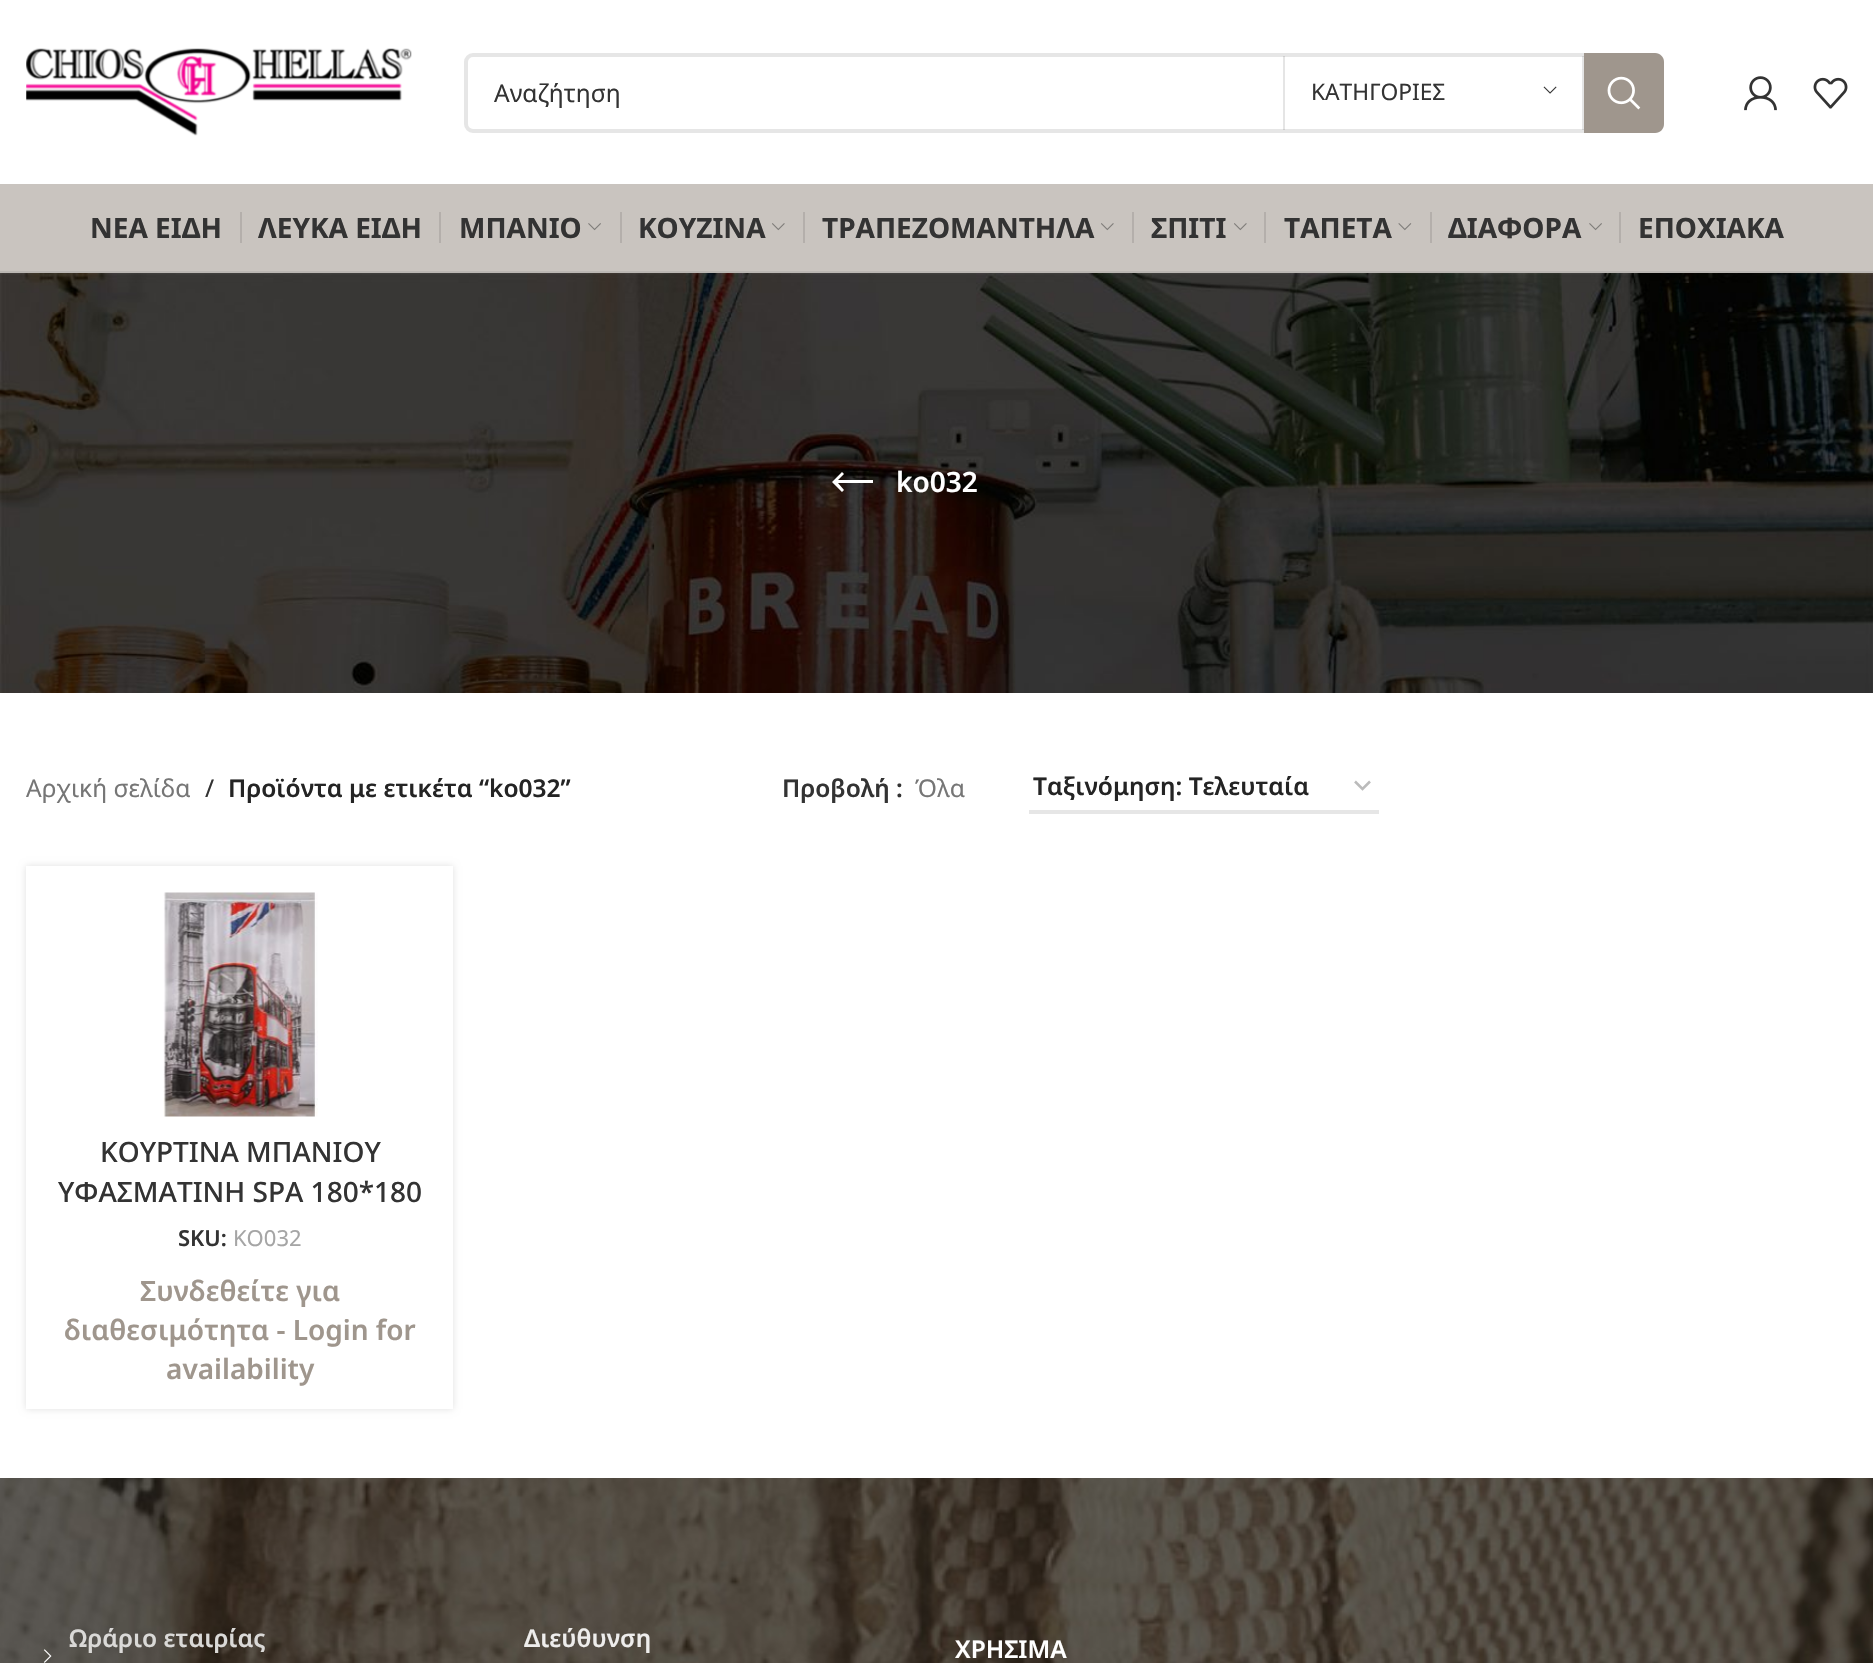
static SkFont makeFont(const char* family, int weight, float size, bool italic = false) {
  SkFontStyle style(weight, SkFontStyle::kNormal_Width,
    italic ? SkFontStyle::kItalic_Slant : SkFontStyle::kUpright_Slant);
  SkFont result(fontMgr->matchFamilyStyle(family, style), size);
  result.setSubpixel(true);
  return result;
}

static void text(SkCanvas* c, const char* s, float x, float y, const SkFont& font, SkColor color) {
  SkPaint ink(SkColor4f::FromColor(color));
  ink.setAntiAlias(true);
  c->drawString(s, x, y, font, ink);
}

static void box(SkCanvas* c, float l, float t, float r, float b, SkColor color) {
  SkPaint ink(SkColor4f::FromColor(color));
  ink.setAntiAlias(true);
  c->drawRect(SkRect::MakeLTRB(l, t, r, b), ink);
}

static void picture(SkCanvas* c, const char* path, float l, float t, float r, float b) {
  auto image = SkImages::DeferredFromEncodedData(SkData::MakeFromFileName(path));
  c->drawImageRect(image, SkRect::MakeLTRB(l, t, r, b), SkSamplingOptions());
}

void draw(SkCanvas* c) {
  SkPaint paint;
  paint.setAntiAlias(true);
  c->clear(0xffffffff);
  picture(c, "img_01.png", 26, 48, 412, 136);
  paint.setStyle(SkPaint::kStroke_Style);
  paint.setStrokeWidth(4);
  paint.setColor(0xffe6e6e6);
  c->drawRoundRect(SkRect::MakeLTRB(466, 55, 1662, 131), 7, 7, paint);
  SkFont face1 = makeFont("Noto Sans", 400, 24.5f);
  text(c, "Αναζήτηση", 494, 102, face1, 0xff333333);
  box(c, 1582, 56, 1584, 130, 0x1a000000);
  box(c, 1283, 56, 1285, 130, 0x1a000000);
  SkFont face2 = makeFont("Noto Sans", 400, 22.75f);
  text(c, "ΚΑΤΗΓΟΡΙΕΣ", 1311, 100, face2, 0xff333333);
  picture(c, "img_02.png", 1543, 86, 1557, 94);
  paint.setStyle(SkPaint::kFill_Style);
  paint.setColor(0xff9f968d);
  c->drawPath(SkPathBuilder().moveTo(1584, 53).lineTo(1655, 53).cubicTo(1660, 53, 1664, 57, 1664, 62).lineTo(1664, 124).cubicTo(1664, 129, 1660, 133, 1655, 133).lineTo(1584, 133).close().detach(), paint);
  picture(c, "img_03.png", 1607, 76, 1641, 110);
  picture(c, "img_04.png", 1744, 76, 1777, 111);
  picture(c, "img_05.png", 1813, 77, 1848, 109);
  box(c, 0, 184, 1873, 271, 0xffc9c4bf);
  box(c, 0, 271, 1873, 273, 0xffbbb7b3);
  SkFont face3 = makeFont("Noto Sans", 700, 28);
  text(c, "ΝΕΑ ΕΙΔΗ", 90, 238, face3, 0xff333333);
  box(c, 240, 212, 242, 243, 0xffb4afab);
  text(c, "ΛΕΥΚΑ ΕΙΔΗ", 258, 238, face3, 0xff333333);
  box(c, 439, 212, 441, 243, 0xffb4afab);
  text(c, "ΜΠΑΝΙΟ", 459, 238, face3, 0xff333333);
  picture(c, "img_06.png", 588, 223, 601, 231);
  box(c, 620, 212, 622, 243, 0xffb4afab);
  text(c, "ΚΟΥΖΙΝΑ", 638, 238, face3, 0xff333333);
  picture(c, "img_07.png", 772, 223, 785, 231);
  box(c, 803, 212, 805, 243, 0xffb4afab);
  text(c, "ΤΡΑΠΕΖΟΜΑΝΤΗΛΑ", 822, 238, face3, 0xff333333);
  picture(c, "img_07.png", 1101, 223, 1114, 231);
  box(c, 1132, 212, 1134, 243, 0xffb4afab);
  text(c, "ΣΠΙΤΙ", 1151, 238, face3, 0xff333333);
  picture(c, "img_07.png", 1234, 223, 1247, 231);
  box(c, 1264, 212, 1266, 243, 0xffb4afab);
  text(c, "ΤΑΠΕΤΑ", 1284, 238, face3, 0xff333333);
  picture(c, "img_08.png", 1398, 223, 1412, 231);
  box(c, 1430, 212, 1432, 243, 0xffb4afab);
  text(c, "ΔΙΑΦΟΡΑ", 1448, 238, face3, 0xff333333);
  picture(c, "img_06.png", 1589, 223, 1602, 231);
  box(c, 1619, 212, 1621, 243, 0xffb4afab);
  text(c, "ΕΠΟΧΙΑΚΑ", 1638, 238, face3, 0xff333333);
  picture(c, "img_09.png", 0, 273, 1873, 693);
  paint.setColor(0xffffffff);
  c->drawPath(SkPathBuilder().moveTo(844, 490).lineTo(838, 483).lineTo(873, 483).lineTo(873, 480).lineTo(838, 480).lineTo(844, 474).lineTo(842, 472).lineTo(832, 482).lineTo(842, 492).close().detach(), paint);
  SkFont face4 = makeFont("Noto Sans", 600, 28);
  text(c, "ko032", 896, 492, face4, 0xffffffff);
  text(c, "Αρχική σελίδα", 26, 797, face1, 0xff767676);
  text(c, "/", 205, 797, face1, 0xff333333);
  SkFont face5 = makeFont("Noto Sans", 600, 24.5f);
  text(c, "Προϊόντα με ετικέτα “ko032”", 228, 797, face5, 0xff242424);
  text(c, "Προβολή :", 782, 797, face5, 0xff333333);
  text(c, "Όλα", 915, 797, face1, 0xff767676);
  paint.setStyle(SkPaint::kStroke_Style);
  paint.setStrokeWidth(2.5f);
  paint.setColor(0xffbbbbbb);
  c->drawPath(SkPathBuilder().moveTo(1355, 781.5f).lineTo(1362.5f, 789).lineTo(1370, 781.5f).detach(), paint);
  box(c, 1029, 810, 1379, 814, 0xffe6e6e6);
  text(c, "Ταξινόμηση: Τελευταία", 1033, 795, face5, 0xff242424);
  c->save();
  c->clipPath(SkPathBuilder(SkPathFillType::kEvenOdd).moveTo(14, 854).lineTo(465, 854).lineTo(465, 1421).lineTo(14, 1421).close().moveTo(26, 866).lineTo(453, 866).lineTo(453, 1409).lineTo(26, 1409).close().detach(), true);
  paint.setStyle(SkPaint::kFill_Style);
  paint.setColor(0x1f000000);
  paint.setMaskFilter(SkMaskFilter::MakeBlur(kNormal_SkBlurStyle, 3.5f));
  c->drawRect(SkRect::MakeLTRB(26, 866, 453, 1409), paint);
  paint.setMaskFilter(nullptr);
  c->restore();
  picture(c, "img_10.png", 163, 892, 318, 1117);
  SkFont face6 = makeFont("Noto Sans", 500, 28);
  text(c, "ΚΟΥΡΤΙΝΑ ΜΠΑΝΙΟΥ", 100, 1162, face6, 0xff333333);
  text(c, "ΥΦΑΣΜΑΤΙΝΗ SPA 180*180", 58, 1202, face6, 0xff333333);
  SkFont face7 = makeFont("Noto Sans", 600, 22);
  text(c, "SKU:", 178, 1246, face7, 0xff333333);
  SkFont face8 = makeFont("Noto Sans", 400, 22);
  text(c, "ΚΟ032", 233, 1246, face8, 0xffa5a5a5);
  text(c, "Συνδεθείτε για", 140, 1301, face4, 0xff9f968d);
  text(c, "διαθεσιμότητα - Login for", 64, 1340, face4, 0xff9f968d);
  text(c, "availability", 166, 1379, face4, 0xff9f968d);
  picture(c, "img_11.png", 0, 1478, 1873, 1663);
  text(c, "Ωράριο εταιρίας", 69, 1647, face5, 0xffdad9d7);
  picture(c, "img_12.png", 43, 1649, 52, 1663);
  text(c, "Διεύθυνση", 524, 1647, face5, 0xffeeedec);
  text(c, "ΧΡΗΣΙΜΑ", 955, 1658, face5, 0xffffffff);
}
